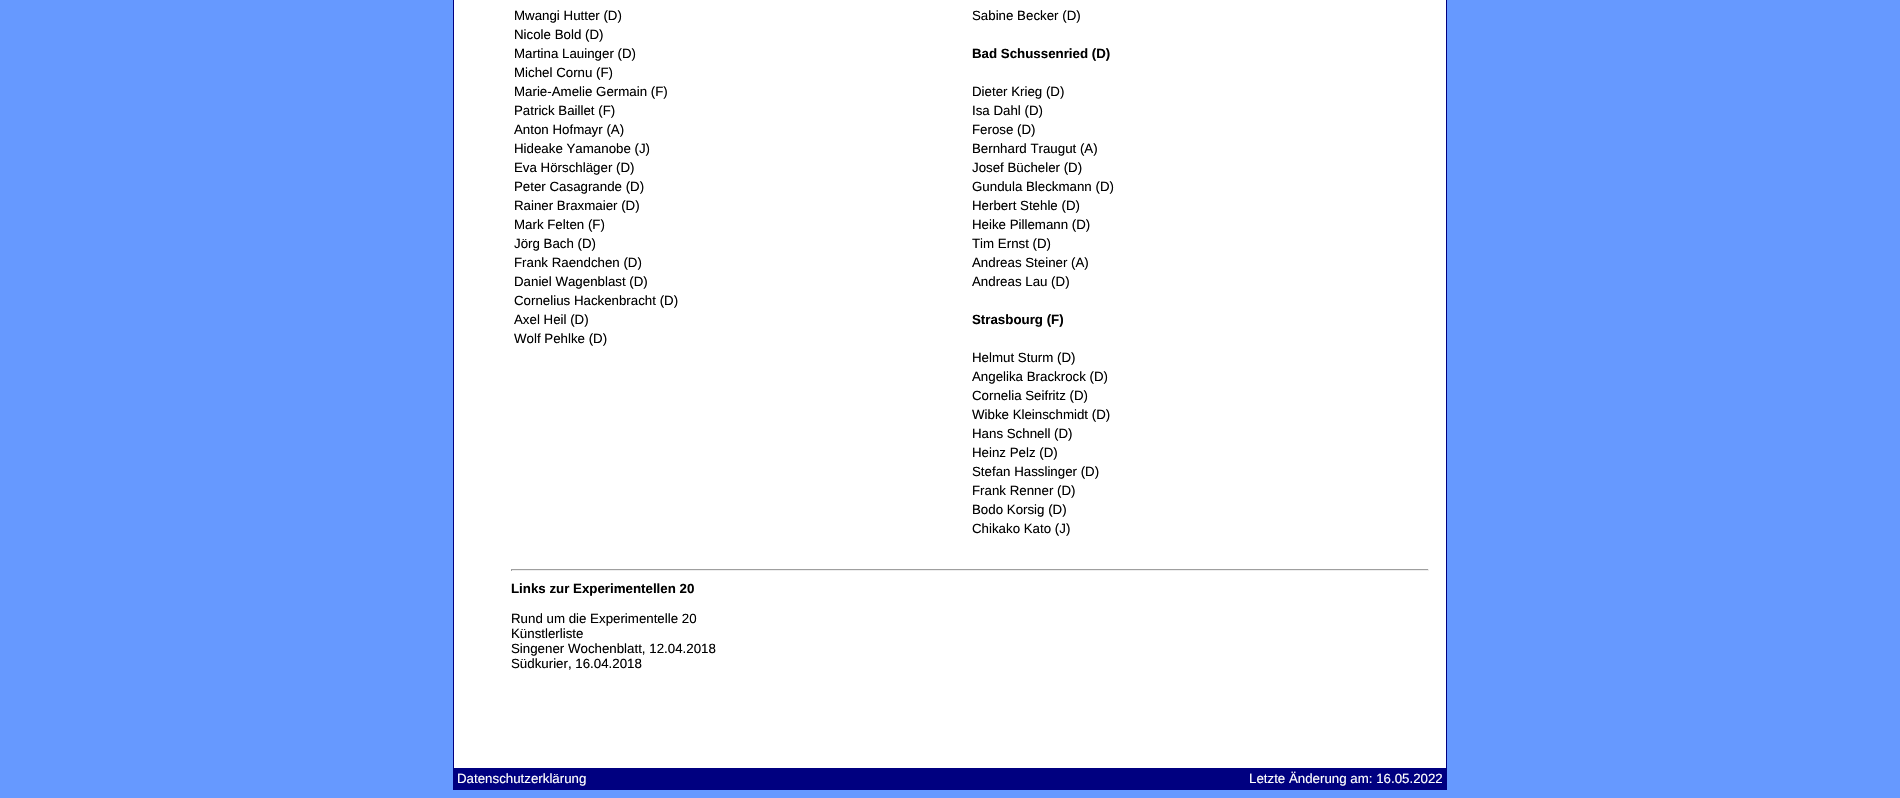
static SkFont makeFont(const char* family, int weight, float size, bool italic = false) {
  SkFontStyle style(weight, SkFontStyle::kNormal_Width,
    italic ? SkFontStyle::kItalic_Slant : SkFontStyle::kUpright_Slant);
  SkFont result(fontMgr->matchFamilyStyle(family, style), size);
  result.setSubpixel(true);
  return result;
}

static void text(SkCanvas* c, const char* s, float x, float y, const SkFont& font, SkColor color) {
  SkPaint ink(SkColor4f::FromColor(color));
  ink.setAntiAlias(true);
  c->drawString(s, x, y, font, ink);
}

static void box(SkCanvas* c, float l, float t, float r, float b, SkColor color) {
  SkPaint ink(SkColor4f::FromColor(color));
  ink.setAntiAlias(true);
  c->drawRect(SkRect::MakeLTRB(l, t, r, b), ink);
}

void draw(SkCanvas* c) {
  SkPaint paint;
  paint.setAntiAlias(true);
  c->clear(0xff6699ff);
  box(c, 454, 0, 1446, 768, 0xffffffff);
  paint.setStyle(SkPaint::kStroke_Style);
  paint.setStrokeWidth(1);
  paint.setColor(0xff000080);
  c->drawRect(SkRect::MakeLTRB(453.5f, -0.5f, 1446.5f, 789.5f), paint);
  SkFont face1 = makeFont("Liberation Sans", 400, 13.3f);
  text(c, "Mwangi Hutter (D)", 514, 20, face1, 0xff000000);
  text(c, "Sabine Becker (D)", 972, 20, face1, 0xff000000);
  text(c, "Nicole Bold (D)", 514, 39, face1, 0xff000000);
  text(c, "Martina Lauinger (D)", 514, 58, face1, 0xff000000);
  SkFont face2 = makeFont("Liberation Sans", 700, 13.3f);
  text(c, "Bad Schussenried (D)", 972, 58, face2, 0xff000000);
  text(c, "Michel Cornu (F)", 514, 77, face1, 0xff000000);
  text(c, "Marie-Amelie Germain (F)", 514, 96, face1, 0xff000000);
  text(c, "Dieter Krieg (D)", 972, 96, face1, 0xff000000);
  text(c, "Patrick Baillet (F)", 514, 115, face1, 0xff000000);
  text(c, "Isa Dahl (D)", 972, 115, face1, 0xff000000);
  text(c, "Anton Hofmayr (A)", 514, 134, face1, 0xff000000);
  text(c, "Ferose (D)", 972, 134, face1, 0xff000000);
  text(c, "Hideake Yamanobe (J)", 514, 153, face1, 0xff000000);
  text(c, "Bernhard Traugut (A)", 972, 153, face1, 0xff000000);
  text(c, "Eva Hörschläger (D)", 514, 172, face1, 0xff000000);
  text(c, "Josef Bücheler (D)", 972, 172, face1, 0xff000000);
  text(c, "Peter Casagrande (D)", 514, 191, face1, 0xff000000);
  text(c, "Gundula Bleckmann (D)", 972, 191, face1, 0xff000000);
  text(c, "Rainer Braxmaier (D)", 514, 210, face1, 0xff000000);
  text(c, "Herbert Stehle (D)", 972, 210, face1, 0xff000000);
  text(c, "Mark Felten (F)", 514, 229, face1, 0xff000000);
  text(c, "Heike Pillemann (D)", 972, 229, face1, 0xff000000);
  text(c, "Jörg Bach (D)", 514, 248, face1, 0xff000000);
  text(c, "Tim Ernst (D)", 972, 248, face1, 0xff000000);
  text(c, "Frank Raendchen (D)", 514, 267, face1, 0xff000000);
  text(c, "Andreas Steiner (A)", 972, 267, face1, 0xff000000);
  text(c, "Daniel Wagenblast (D)", 514, 286, face1, 0xff000000);
  text(c, "Andreas Lau (D)", 972, 286, face1, 0xff000000);
  text(c, "Cornelius Hackenbracht (D)", 514, 305, face1, 0xff000000);
  text(c, "Axel Heil (D)", 514, 324, face1, 0xff000000);
  text(c, "Strasbourg (F)", 972, 324, face2, 0xff000000);
  text(c, "Wolf Pehlke (D)", 514, 343, face1, 0xff000000);
  text(c, "Helmut Sturm (D)", 972, 362, face1, 0xff000000);
  text(c, "Angelika Brackrock (D)", 972, 381, face1, 0xff000000);
  text(c, "Cornelia Seifritz (D)", 972, 400, face1, 0xff000000);
  text(c, "Wibke Kleinschmidt (D)", 972, 419, face1, 0xff000000);
  text(c, "Hans Schnell (D)", 972, 438, face1, 0xff000000);
  text(c, "Heinz Pelz (D)", 972, 457, face1, 0xff000000);
  text(c, "Stefan Hasslinger (D)", 972, 476, face1, 0xff000000);
  text(c, "Frank Renner (D)", 972, 495, face1, 0xff000000);
  text(c, "Bodo Korsig (D)", 972, 514, face1, 0xff000000);
  text(c, "Chikako Kato (J)", 972, 533, face1, 0xff000000);
  box(c, 511, 569, 1429, 570, 0xff9f9f9f);
  box(c, 1428, 569, 1429, 571, 0xffeeeeee);
  box(c, 511, 570, 1429, 571, 0xffeeeeee);
  box(c, 511, 569, 512, 571, 0xff9f9f9f);
  text(c, "Links zur Experimentellen 20", 511, 593, face2, 0xff000000);
  text(c, "Rund um die Experimentelle 20", 511, 623, face1, 0xff000000);
  text(c, "Künstlerliste", 511, 638, face1, 0xff000000);
  text(c, "Singener Wochenblatt, 12.04.2018", 511, 653, face1, 0xff000000);
  text(c, "Südkurier, 16.04.2018", 511, 668, face1, 0xff000000);
  box(c, 454, 768, 1446, 789, 0xff000080);
  text(c, "Datenschutzerklärung", 457, 783, face1, 0xffffffff);
  text(c, "Letzte Änderung am: 16.05.2022", 1249, 783, face1, 0xffffffff);
}
